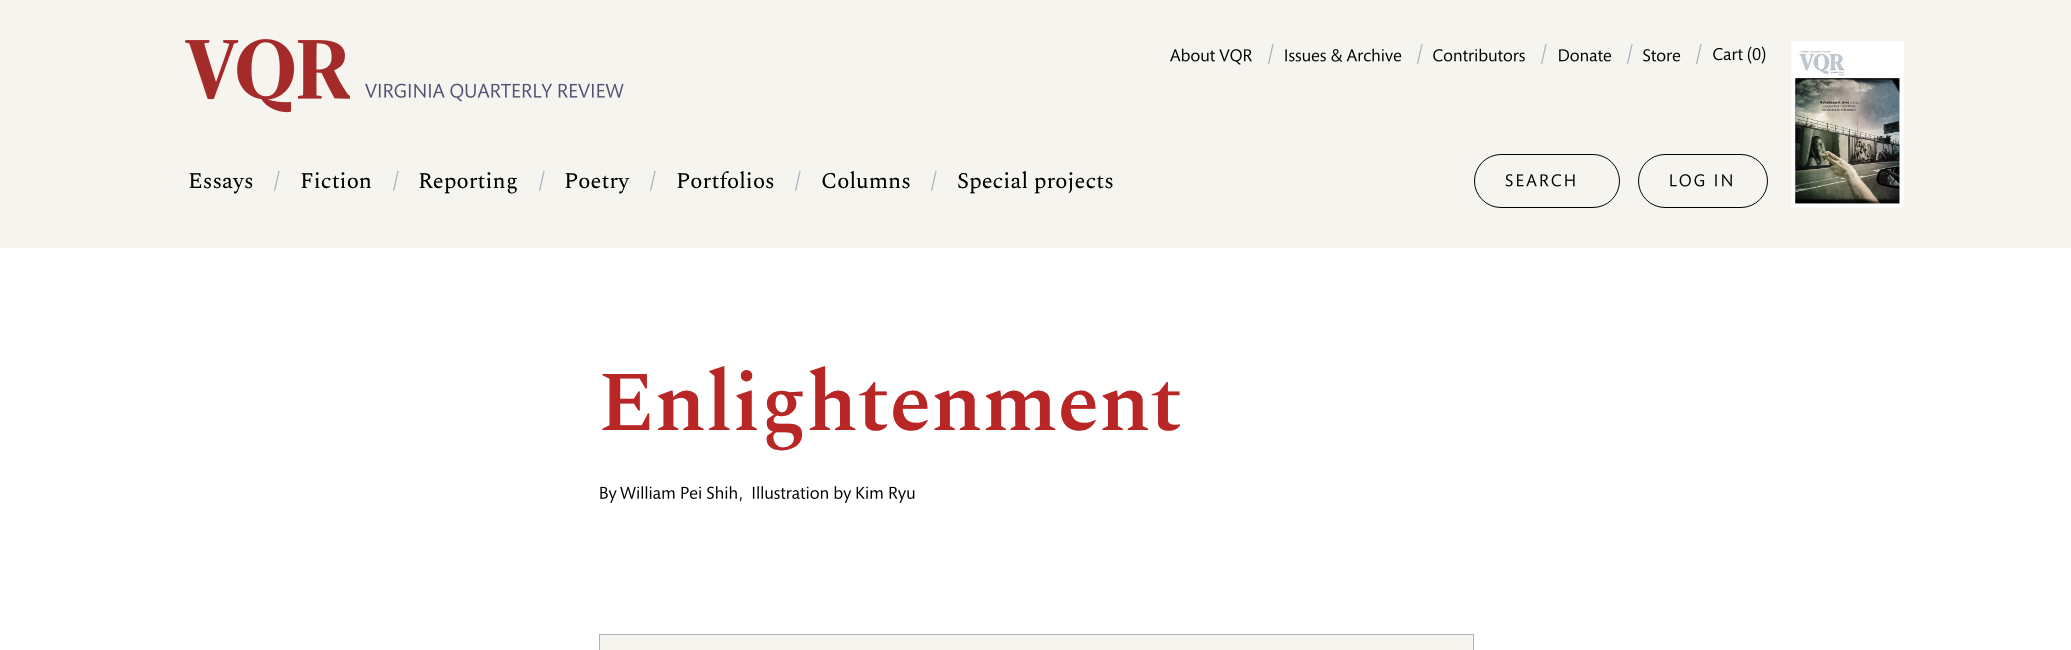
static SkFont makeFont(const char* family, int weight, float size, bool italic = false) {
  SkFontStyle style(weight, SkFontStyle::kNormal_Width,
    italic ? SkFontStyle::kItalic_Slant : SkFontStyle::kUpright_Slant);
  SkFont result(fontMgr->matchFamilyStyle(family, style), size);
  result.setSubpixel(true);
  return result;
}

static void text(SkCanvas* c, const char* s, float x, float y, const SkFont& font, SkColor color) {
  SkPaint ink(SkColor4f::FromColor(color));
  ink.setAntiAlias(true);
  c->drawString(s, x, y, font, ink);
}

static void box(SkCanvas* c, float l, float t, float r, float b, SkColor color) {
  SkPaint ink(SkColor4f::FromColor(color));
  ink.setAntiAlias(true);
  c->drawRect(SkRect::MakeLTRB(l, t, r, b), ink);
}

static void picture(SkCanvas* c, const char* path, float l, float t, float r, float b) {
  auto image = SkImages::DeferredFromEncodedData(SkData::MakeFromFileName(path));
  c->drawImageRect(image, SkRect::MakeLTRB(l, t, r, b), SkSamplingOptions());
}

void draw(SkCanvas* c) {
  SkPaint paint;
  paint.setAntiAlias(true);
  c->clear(0xffffffff);
  box(c, 0, 0, 2071, 248, 0xfff6f4ef);
  picture(c, "img_01.png", 185, 39, 350, 113);
  picture(c, "img_02.png", 365, 83, 624, 102);
  picture(c, "img_03.png", 1170, 48, 1252, 65);
  SkFont face1 = makeFont("Spectral", 400, 22.5f);
  text(c, "/", 1268, 61, face1, 0xffafafbf);
  picture(c, "img_04.png", 1285, 48, 1402, 62);
  text(c, "/", 1417, 61, face1, 0xffafafbf);
  picture(c, "img_05.png", 1433, 48, 1525, 62);
  text(c, "/", 1541, 61, face1, 0xffafafbf);
  picture(c, "img_06.png", 1559, 49, 1611, 62);
  text(c, "/", 1627, 61, face1, 0xffafafbf);
  picture(c, "img_07.png", 1643, 49, 1681, 62);
  text(c, "/", 1696, 61, face1, 0xffafafbf);
  picture(c, "img_08.png", 1713, 46, 1766, 64);
  text(c, "Essays", 188, 188, face1, 0xff000000);
  text(c, "/", 274, 188, face1, 0xffafafbf);
  text(c, "Fiction", 300, 188, face1, 0xff000000);
  text(c, "/", 393, 188, face1, 0xffafafbf);
  text(c, "Reporting", 418, 188, face1, 0xff000000);
  text(c, "/", 539, 188, face1, 0xffafafbf);
  text(c, "Poetry", 564, 188, face1, 0xff000000);
  text(c, "/", 650, 188, face1, 0xffafafbf);
  text(c, "Portfolios", 676, 188, face1, 0xff000000);
  text(c, "/", 795, 188, face1, 0xffafafbf);
  text(c, "Columns", 821, 188, face1, 0xff000000);
  text(c, "/", 931, 188, face1, 0xffafafbf);
  text(c, "Special projects", 957, 188, face1, 0xff000000);
  picture(c, "img_09.png", 1505, 174, 1575, 187);
  paint.setStyle(SkPaint::kStroke_Style);
  paint.setStrokeWidth(1);
  paint.setColor(0xff000000);
  c->drawRoundRect(SkRect::MakeLTRB(1474.5f, 154.5f, 1619.5f, 207.5f), 26.5f, 26.5f, paint);
  picture(c, "img_10.png", 1670, 174, 1732, 187);
  c->drawRoundRect(SkRect::MakeLTRB(1638.5f, 154.5f, 1767.5f, 207.5f), 26.5f, 26.5f, paint);
  picture(c, "img_11.png", 1791, 41, 1904, 208);
  SkFont face2 = makeFont("Spectral", 600, 85);
  text(c, "Enlightenment", 598, 430, face2, 0xffb82726);
  picture(c, "img_12.png", 600, 486, 617, 503);
  picture(c, "img_13.png", 620, 486, 737, 499);
  picture(c, "img_14.png", 739, 497, 742, 502);
  picture(c, "img_15.png", 752, 486, 852, 503);
  picture(c, "img_16.png", 856, 486, 915, 503);
  paint.setStyle(SkPaint::kFill_Style);
  paint.setColor(0xfff6f4ef);
  c->drawRect(SkRect::MakeLTRB(599.5f, 634.5f, 1473.5f, 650.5f), paint);
  paint.setStyle(SkPaint::kStroke_Style);
  paint.setColor(0xffafafbf);
  c->drawRect(SkRect::MakeLTRB(599.5f, 634.5f, 1473.5f, 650.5f), paint);
}
